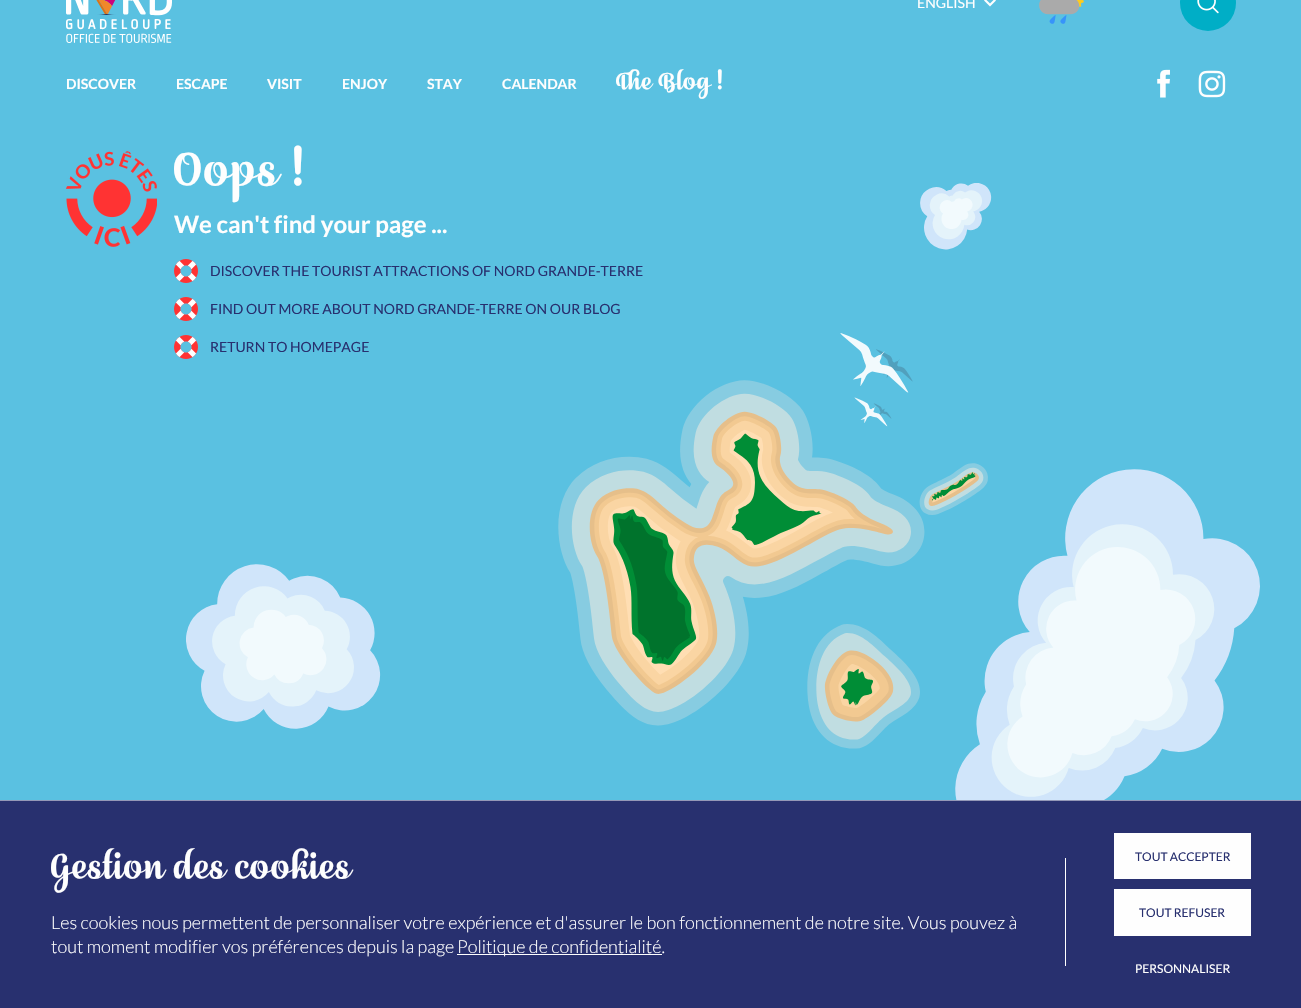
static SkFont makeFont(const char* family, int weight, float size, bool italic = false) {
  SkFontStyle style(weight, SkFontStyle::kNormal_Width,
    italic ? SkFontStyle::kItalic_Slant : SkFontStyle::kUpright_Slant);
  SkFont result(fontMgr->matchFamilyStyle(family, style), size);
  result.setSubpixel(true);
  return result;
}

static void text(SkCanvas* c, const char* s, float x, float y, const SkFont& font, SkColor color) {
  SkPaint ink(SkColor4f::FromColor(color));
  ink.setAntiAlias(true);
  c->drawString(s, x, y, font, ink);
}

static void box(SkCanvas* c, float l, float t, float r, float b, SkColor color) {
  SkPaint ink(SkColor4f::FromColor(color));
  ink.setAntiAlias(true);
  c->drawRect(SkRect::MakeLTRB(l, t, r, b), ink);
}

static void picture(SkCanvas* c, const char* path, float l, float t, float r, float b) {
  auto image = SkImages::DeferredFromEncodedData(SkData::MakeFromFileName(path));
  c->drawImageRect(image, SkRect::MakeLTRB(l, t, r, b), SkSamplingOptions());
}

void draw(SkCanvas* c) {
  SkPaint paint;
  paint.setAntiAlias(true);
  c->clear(0xff5ac1e1);
  picture(c, "img_01.png", 66, 0, 172, 43);
  SkFont face1 = makeFont("Lato", 400, 14);
  text(c, "ENGLISH", 917, 8, face1, 0xfffefefe);
  picture(c, "img_02.png", 984, 0, 996, 7);
  picture(c, "img_03.png", 1039, 0, 1084, 24);
  paint.setColor(0xff00aec6);
  c->drawCircle(1208, 3, 28, paint);
  picture(c, "img_04.png", 1197, 0, 1219, 14);
  SkFont face2 = makeFont("Lato", 700, 14);
  text(c, "DISCOVER", 66, 89, face2, 0xfffefefe);
  text(c, "ESCAPE", 176, 89, face2, 0xfffefefe);
  text(c, "VISIT", 267, 89, face2, 0xfffefefe);
  text(c, "ENJOY", 342, 89, face2, 0xfffefefe);
  text(c, "STAY", 427, 89, face2, 0xfffefefe);
  text(c, "CALENDAR", 502, 89, face2, 0xfffefefe);
  SkFont face3 = makeFont("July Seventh", 400, 24);
  text(c, "The Blog !", 616, 89, face3, 0xfffefefe);
  picture(c, "img_05.png", 1157, 69, 1170, 98);
  picture(c, "img_06.png", 1198, 70, 1226, 98);
  picture(c, "img_07.png", 66, 151, 157, 247);
  picture(c, "img_09.png", 186, 183, 1260, 800);
  SkFont face4 = makeFont("July Seventh", 400, 48);
  text(c, "Oops !", 174, 185, face4, 0xfffefefe);
  SkFont face5 = makeFont("Lato", 700, 24);
  text(c, "We can't find your page ...", 174, 233, face5, 0xfffefefe);
  picture(c, "img_08.png", 174, 259, 198, 283);
  text(c, "DISCOVER THE TOURIST ATTRACTIONS OF NORD GRANDE-TERRE", 210, 276, face1, 0xff28306f);
  picture(c, "img_08.png", 174, 297, 198, 321);
  text(c, "FIND OUT MORE ABOUT NORD GRANDE-TERRE ON OUR BLOG", 210, 314, face1, 0xff28306f);
  picture(c, "img_08.png", 174, 335, 198, 359);
  text(c, "RETURN TO HOMEPAGE", 210, 352, face1, 0xff28306f);
  box(c, 0, 801, 1301, 1008, 0xff28306f);
  box(c, 0, 800, 1301, 801, 0xff9498b7);
  SkFont face6 = makeFont("July Seventh", 400, 36);
  text(c, "Gestion des cookies", 51, 878, face6, 0xfffefefe);
  box(c, 1065, 858, 1066, 966, 0xffffffff);
  SkFont face7 = makeFont("Lato", 300, 18);
  text(c, "Les cookies nous permettent de personnaliser votre expérience et d'assurer le bon fonctionnement de notre site. Vous pouvez à", 51, 929, face7, 0xfffefefe);
  text(c, "tout moment modifier vos préférences depuis la page", 51, 953, face7, 0xfffefefe);
  box(c, 457, 954, 662, 955, 0xfffefefe);
  text(c, "Politique de confidentialité.", 457, 953, face7, 0xfffefefe);
  box(c, 1114, 833, 1251, 879, 0xfffefefe);
  SkFont face8 = makeFont("Lato", 400, 12);
  text(c, "TOUT ACCEPTER", 1135, 861, face8, 0xff28306f);
  box(c, 1114, 889, 1251, 936, 0xfffefefe);
  text(c, "TOUT REFUSER", 1139, 917, face8, 0xff28306f);
  text(c, "PERSONNALISER", 1135, 973, face8, 0xfffefefe);
}
